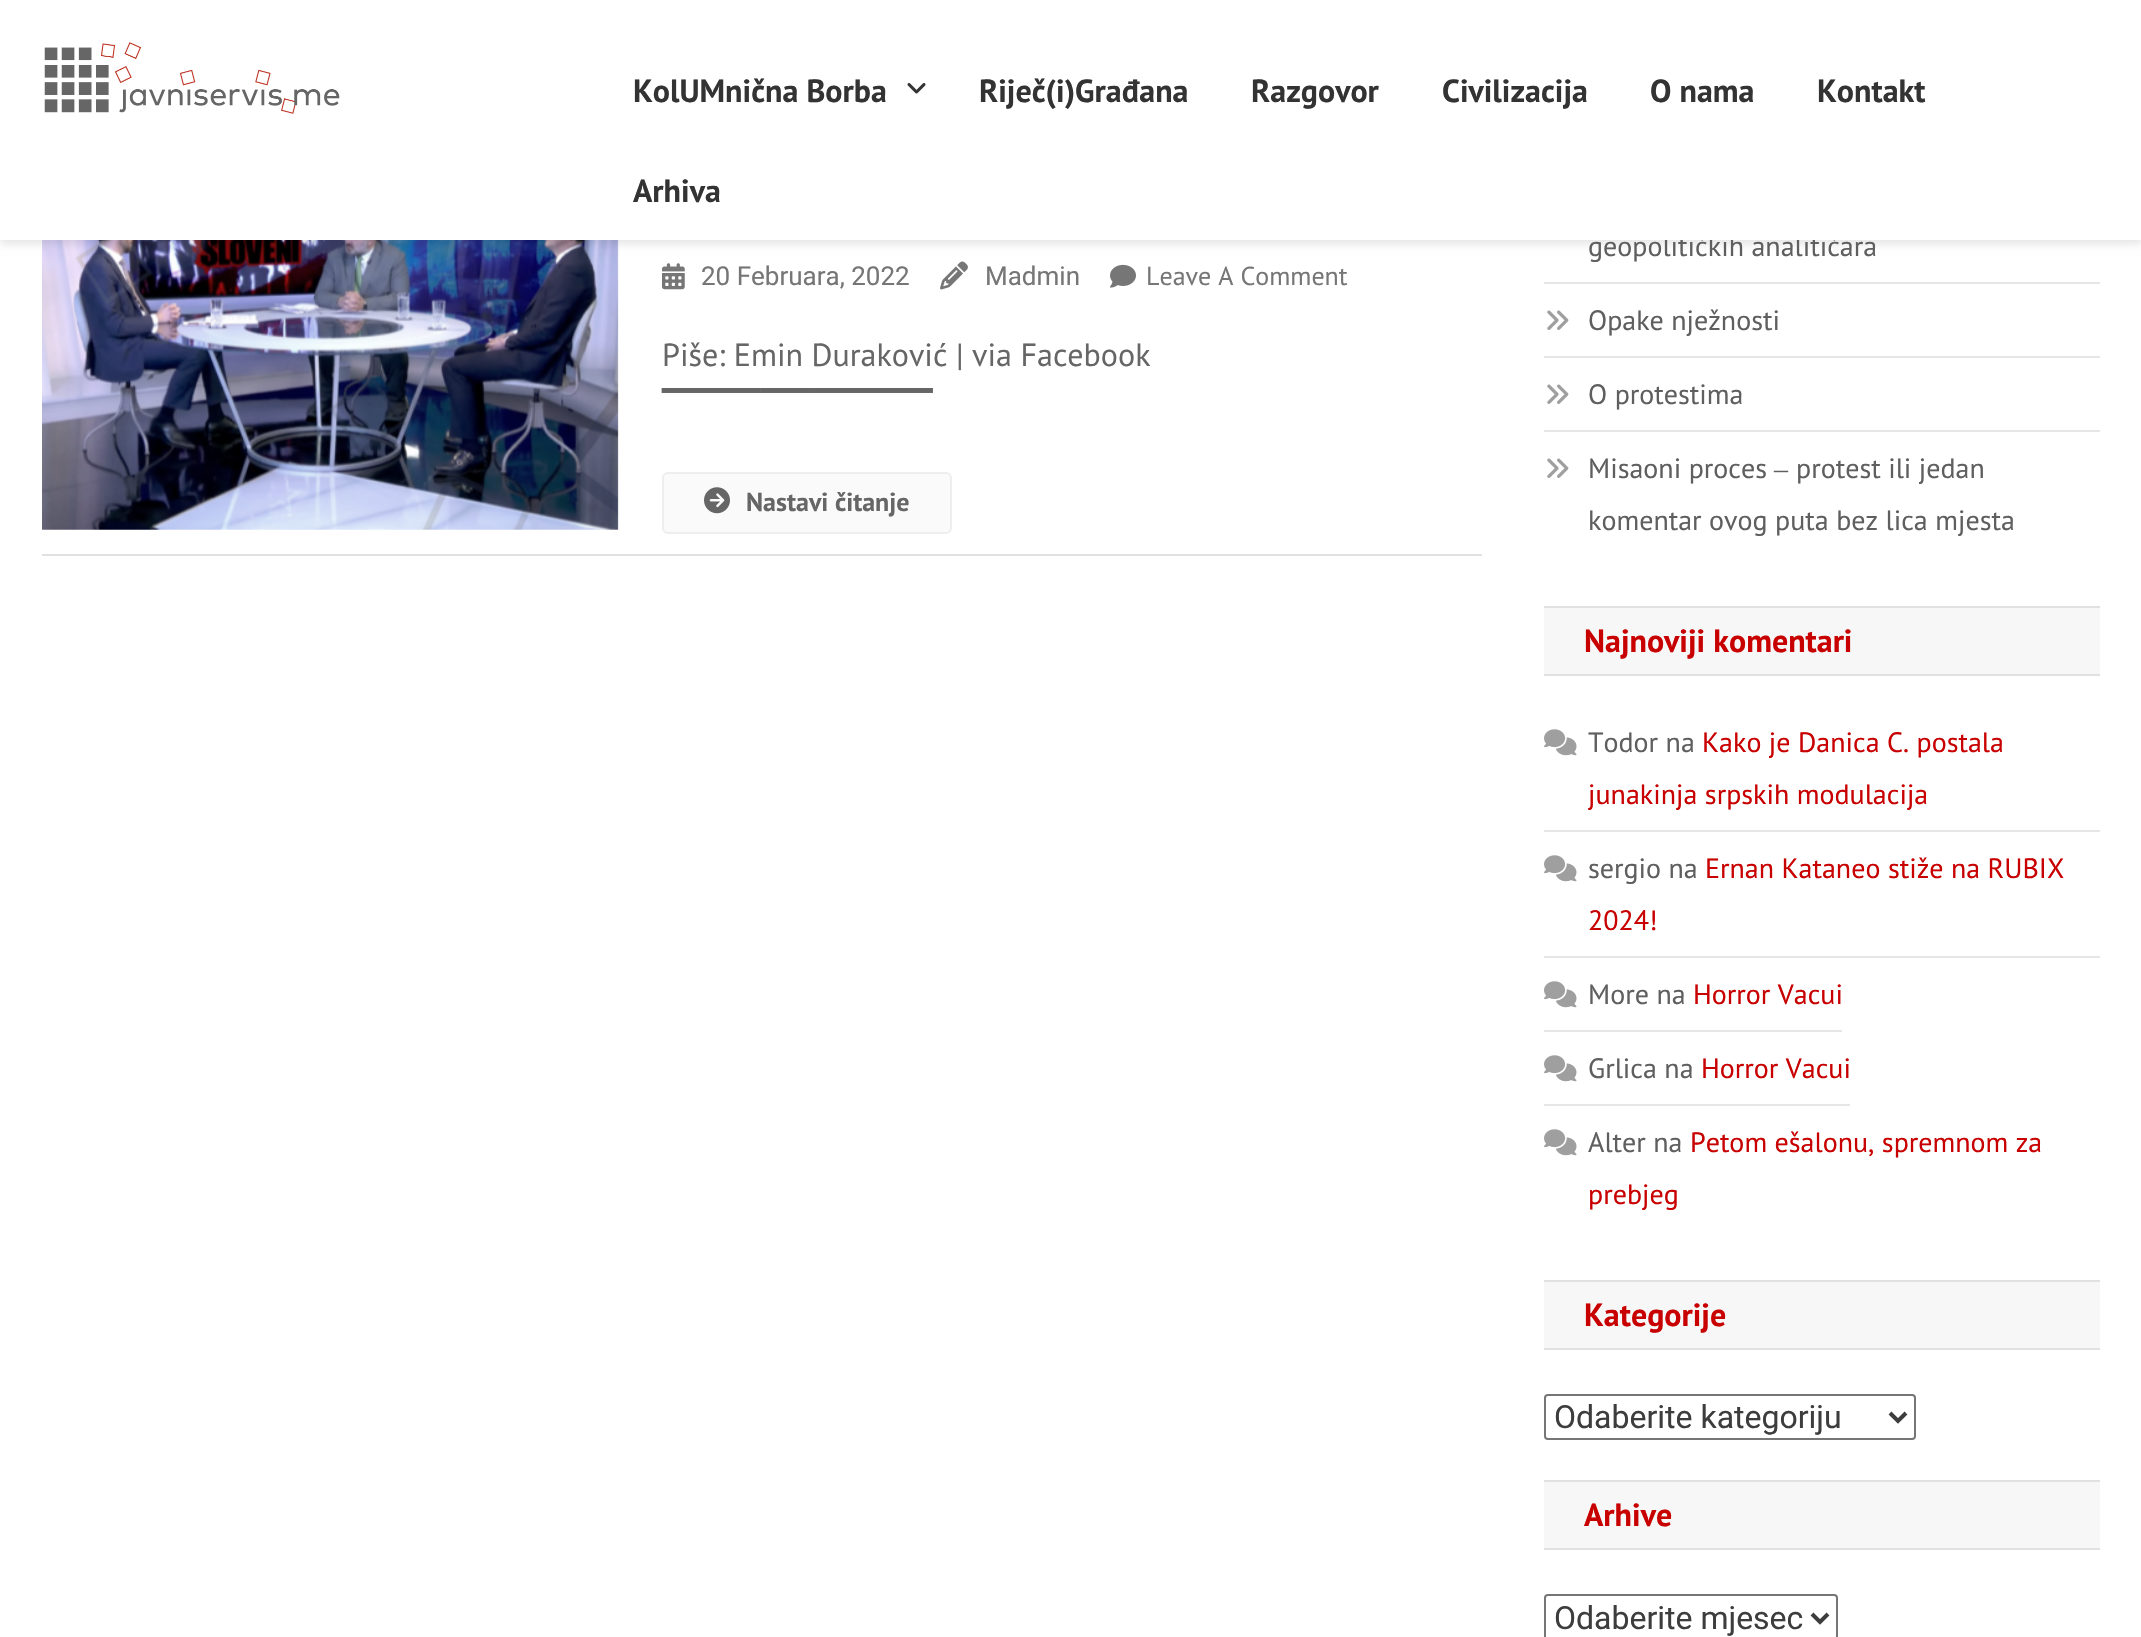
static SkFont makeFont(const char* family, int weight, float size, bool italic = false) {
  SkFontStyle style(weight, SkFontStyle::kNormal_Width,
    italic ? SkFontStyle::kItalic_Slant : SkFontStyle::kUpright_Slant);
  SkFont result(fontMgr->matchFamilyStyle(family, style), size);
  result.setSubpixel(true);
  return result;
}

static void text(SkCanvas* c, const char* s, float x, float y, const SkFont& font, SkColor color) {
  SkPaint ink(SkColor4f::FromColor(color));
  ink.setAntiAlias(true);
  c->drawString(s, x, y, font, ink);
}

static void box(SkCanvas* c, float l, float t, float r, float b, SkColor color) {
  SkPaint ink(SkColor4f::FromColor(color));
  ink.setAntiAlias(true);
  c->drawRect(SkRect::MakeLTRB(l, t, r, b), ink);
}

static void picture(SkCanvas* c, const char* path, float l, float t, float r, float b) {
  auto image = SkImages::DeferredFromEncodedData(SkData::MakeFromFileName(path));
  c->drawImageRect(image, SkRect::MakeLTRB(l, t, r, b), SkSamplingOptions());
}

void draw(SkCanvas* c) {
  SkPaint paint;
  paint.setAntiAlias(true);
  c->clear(0xffffffff);
  picture(c, "img_03.png", 42, 240, 619, 530);
  paint.setColor(0x1a000000);
  paint.setMaskFilter(SkMaskFilter::MakeBlur(kNormal_SkBlurStyle, 4));
  c->drawRect(SkRect::MakeLTRB(0, 4, 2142, 244), paint);
  paint.setMaskFilter(nullptr);
  SkFont face1 = makeFont("PT Sans", 400, 28);
  text(c, "geopolitičkih analitičara", 1588, 256, face1, 0xff5f5f5f);
  box(c, 0, 0, 2141, 240, 0xffffffff);
  picture(c, "img_01.png", 44, 42, 340, 114);
  SkFont face2 = makeFont("PT Sans", 700, 32);
  text(c, "KolUMnična Borba", 633, 102, face2, 0xff333333);
  picture(c, "img_02.png", 907, 83, 926, 94);
  text(c, "Riječ(i)Građana", 979, 102, face2, 0xff333333);
  text(c, "Razgovor", 1251, 102, face2, 0xff333333);
  text(c, "Civilizacija", 1442, 102, face2, 0xff333333);
  text(c, "O nama", 1650, 102, face2, 0xff333333);
  text(c, "Kontakt", 1817, 102, face2, 0xff333333);
  text(c, "Arhiva", 633, 202, face2, 0xff333333);
  picture(c, "img_04.png", 662, 263, 685, 290);
  SkFont face3 = makeFont("Roboto", 400, 26);
  text(c, "20 Februara, 2022", 701, 285, face3, 0xff767676);
  picture(c, "img_05.png", 940, 261, 968, 290);
  text(c, "Madmin", 985, 285, face3, 0xff767676);
  picture(c, "img_06.png", 1110, 264, 1136, 288);
  SkFont face4 = makeFont("PT Sans", 400, 26);
  text(c, "Leave A Comment", 1146, 285, face4, 0xff767676);
  SkFont face5 = makeFont("PT Sans", 400, 32);
  text(c, "Piše: Emin Duraković | via Facebook", 662, 366, face5, 0xff666666);
  SkFont face6 = makeFont("DejaVu Sans", 400, 32);
  text(c, "▔▔▔▔▔▔▔▔▔▔▔", 662, 418, face6, 0xff666666);
  paint.setColor(0xfffafafa);
  c->drawRoundRect(SkRect::MakeLTRB(663, 473, 951, 533), 5, 5, paint);
  paint.setStyle(SkPaint::kStroke_Style);
  paint.setStrokeWidth(2);
  paint.setColor(0xffeeeeee);
  c->drawRoundRect(SkRect::MakeLTRB(663, 473, 951, 533), 5, 5, paint);
  picture(c, "img_07.png", 704, 487, 730, 514);
  SkFont face7 = makeFont("PT Sans", 700, 26);
  text(c, "Nastavi čitanje", 746, 511, face7, 0xff666666);
  box(c, 42, 554, 1482, 556, 0xffe1e1e1);
  box(c, 1544, 282, 2100, 284, 0xffe6e6e6);
  box(c, 1544, 356, 2100, 358, 0xffe6e6e6);
  picture(c, "img_08.png", 1547, 310, 1569, 330);
  text(c, "Opake nježnosti", 1588, 330, face1, 0xff5f5f5f);
  box(c, 1544, 430, 2100, 432, 0xffe6e6e6);
  picture(c, "img_08.png", 1547, 384, 1569, 404);
  text(c, "O protestima", 1588, 404, face1, 0xff5f5f5f);
  picture(c, "img_08.png", 1547, 458, 1569, 478);
  text(c, "Misaoni proces", 1588, 478, face1, 0xff5f5f5f);
  SkFont face8 = makeFont("Liberation Serif", 400, 28);
  text(c, "‒", 1774, 478, face8, 0xff5f5f5f);
  text(c, "protest ili jedan", 1796, 478, face1, 0xff5f5f5f);
  text(c, "komentar ovog puta bez lica mjesta", 1588, 530, face1, 0xff5f5f5f);
  box(c, 1544, 608, 2100, 674, 0xfff7f7f7);
  box(c, 1544, 606, 2100, 608, 0xffe1e1e1);
  box(c, 1544, 674, 2100, 676, 0xffe1e1e1);
  text(c, "Najnoviji komentari", 1584, 652, face2, 0xffc80000);
  box(c, 1544, 830, 2100, 832, 0xffe6e6e6);
  picture(c, "img_09.png", 1544, 729, 1577, 756);
  text(c, "Todor na", 1588, 752, face1, 0xff5f5f5f);
  text(c, "Kako je Danica C. postala", 1702, 752, face1, 0xffc80000);
  text(c, "junakinja srpskih modulacija", 1588, 804, face1, 0xffc80000);
  box(c, 1544, 956, 2100, 958, 0xffe6e6e6);
  picture(c, "img_09.png", 1544, 855, 1577, 882);
  text(c, "sergio na", 1588, 878, face1, 0xff5f5f5f);
  text(c, "Ernan Kataneo stiže na RUBIX", 1705, 878, face1, 0xffc80000);
  text(c, "2024!", 1588, 930, face1, 0xffc80000);
  box(c, 1544, 1030, 1842, 1032, 0xffe6e6e6);
  picture(c, "img_09.png", 1544, 981, 1577, 1008);
  text(c, "More na", 1588, 1004, face1, 0xff5f5f5f);
  text(c, "Horror Vacui", 1693, 1004, face1, 0xffc80000);
  box(c, 1544, 1104, 1850, 1106, 0xffe6e6e6);
  picture(c, "img_09.png", 1544, 1055, 1577, 1082);
  text(c, "Grlica na", 1588, 1078, face1, 0xff5f5f5f);
  text(c, "Horror Vacui", 1701, 1078, face1, 0xffc80000);
  picture(c, "img_09.png", 1544, 1129, 1577, 1156);
  text(c, "Alter na", 1588, 1152, face1, 0xff5f5f5f);
  text(c, "Petom ešalonu, spremnom za", 1690, 1152, face1, 0xffc80000);
  text(c, "prebjeg", 1588, 1204, face1, 0xffc80000);
  box(c, 1544, 1282, 2100, 1348, 0xfff7f7f7);
  box(c, 1544, 1280, 2100, 1282, 0xffe1e1e1);
  box(c, 1544, 1348, 2100, 1350, 0xffe1e1e1);
  text(c, "Kategorije", 1584, 1326, face2, 0xffc80000);
  paint.setColor(0xff767676);
  c->drawRoundRect(SkRect::MakeLTRB(1545, 1395, 1915, 1439), 3, 3, paint);
  paint.setStrokeWidth(4);
  paint.setColor(0xff3d3d3d);
  c->drawPath(SkPathBuilder().moveTo(1890, 1413).lineTo(1898, 1421).lineTo(1906, 1413).detach(), paint);
  SkFont face9 = makeFont("Roboto", 400, 32);
  text(c, "Odaberite kategoriju", 1554, 1428, face9, 0xff3d3d3d);
  box(c, 1544, 1482, 2100, 1548, 0xfff7f7f7);
  box(c, 1544, 1480, 2100, 1482, 0xffe1e1e1);
  box(c, 1544, 1548, 2100, 1550, 0xffe1e1e1);
  text(c, "Arhive", 1584, 1526, face2, 0xffc80000);
  paint.setStrokeWidth(2);
  paint.setColor(0xff767676);
  c->drawRoundRect(SkRect::MakeLTRB(1545, 1595, 1837, 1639), 3, 3, paint);
  paint.setStrokeWidth(4);
  paint.setColor(0xff3d3d3d);
  c->drawPath(SkPathBuilder().moveTo(1812, 1614).lineTo(1820, 1622).lineTo(1828, 1614).detach(), paint);
  text(c, "Odaberite mjesec", 1554, 1629, face9, 0xff3d3d3d);
}
